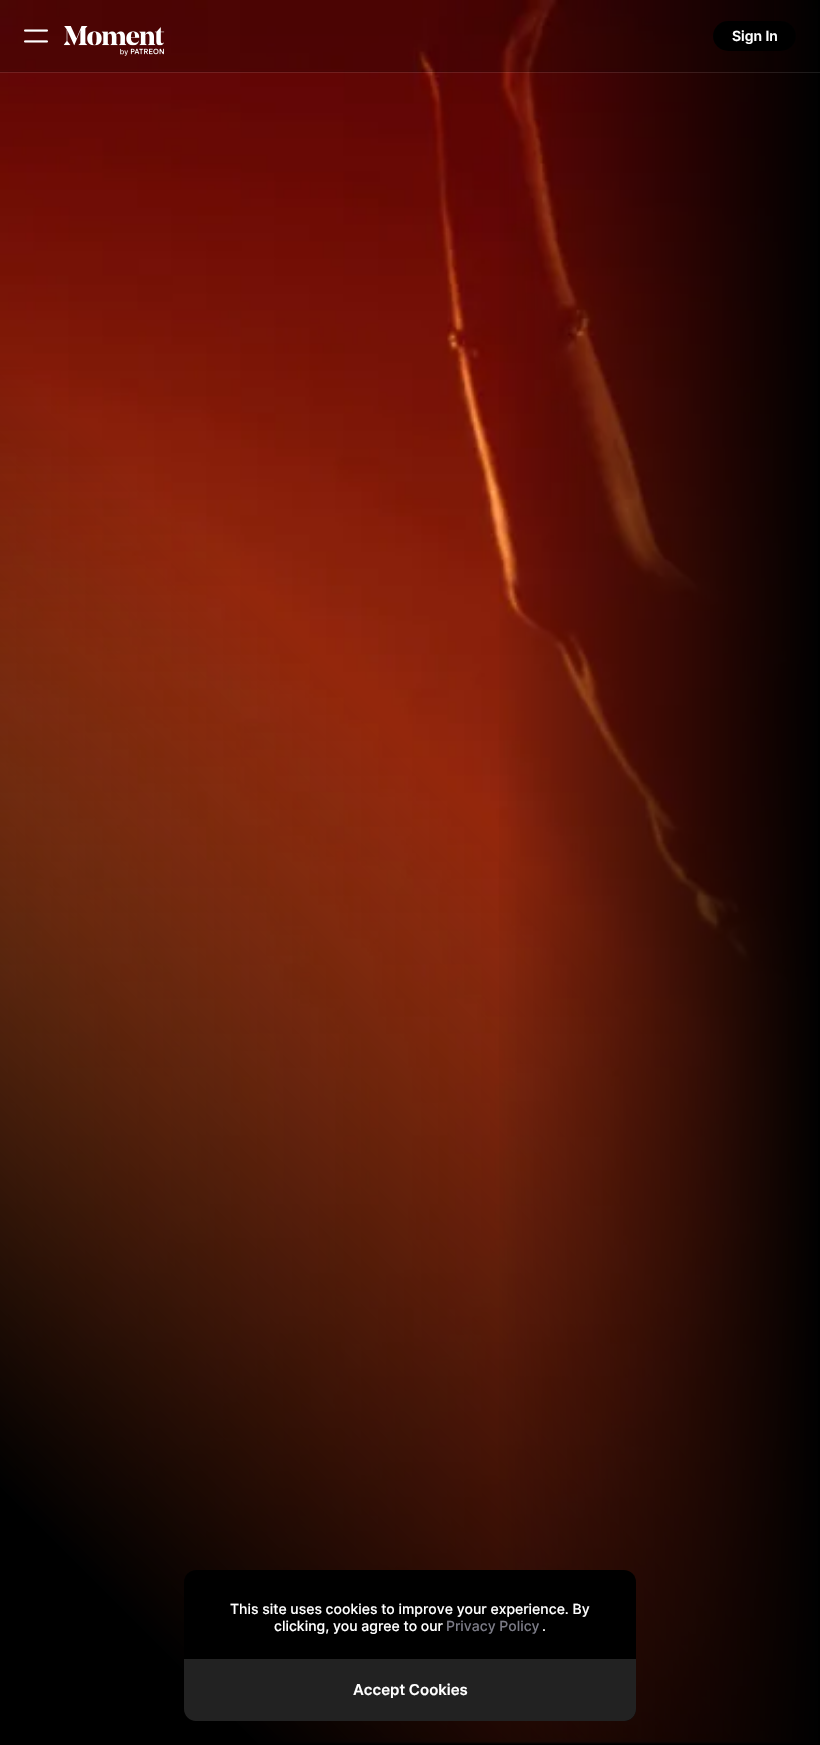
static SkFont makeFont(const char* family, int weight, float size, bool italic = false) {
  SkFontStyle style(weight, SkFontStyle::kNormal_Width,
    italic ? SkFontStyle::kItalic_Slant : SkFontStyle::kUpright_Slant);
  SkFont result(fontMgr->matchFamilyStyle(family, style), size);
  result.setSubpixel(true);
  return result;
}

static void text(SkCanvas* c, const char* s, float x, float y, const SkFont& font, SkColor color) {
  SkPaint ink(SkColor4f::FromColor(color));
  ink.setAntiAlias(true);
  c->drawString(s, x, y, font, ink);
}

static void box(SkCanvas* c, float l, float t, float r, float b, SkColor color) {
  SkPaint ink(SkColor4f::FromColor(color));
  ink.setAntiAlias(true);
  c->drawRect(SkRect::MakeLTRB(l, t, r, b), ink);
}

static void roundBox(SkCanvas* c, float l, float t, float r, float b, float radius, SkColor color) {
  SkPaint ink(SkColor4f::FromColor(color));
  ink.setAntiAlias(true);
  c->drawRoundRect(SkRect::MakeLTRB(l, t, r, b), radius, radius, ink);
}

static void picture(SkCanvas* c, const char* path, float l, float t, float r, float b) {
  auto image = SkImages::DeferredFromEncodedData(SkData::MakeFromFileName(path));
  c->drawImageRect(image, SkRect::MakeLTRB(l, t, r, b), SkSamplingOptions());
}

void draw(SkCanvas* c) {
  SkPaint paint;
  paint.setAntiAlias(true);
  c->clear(0xff000000);
  picture(c, "img_01.png", 0, 0, 818, 1744);
  {
    const SkColor colors[] = {0xff000000, 0x00000000};
    const float stops[] = {0.1f, 0.55f};
    const SkPoint ends[] = {{-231, 1514}, {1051, 231}};
    paint.setShader(SkGradientShader::MakeLinear(ends, colors, stops, 2, SkTileMode::kClamp));
    paint.setAlpha(255);
  }
  c->drawRect(SkRect::MakeLTRB(0, 360, 818, 1744), paint);
  {
    const SkColor colors[] = {0xff000000, 0x00000000};
    const float stops[] = {0, 0.4f};
    const SkPoint ends[] = {{820, 873}, {0, 873}};
    paint.setShader(SkGradientShader::MakeLinear(ends, colors, stops, 2, SkTileMode::kClamp));
    paint.setAlpha(255);
  }
  c->drawRect(SkRect::MakeLTRB(499, 0, 818, 1744), paint);
  box(c, 0, 0, 774, 72, 0x33000000);
  box(c, 0, 72, 820, 73, 0x1affffff);
  box(c, 0, 71, 678, 72, 0x14000000);
  picture(c, "img_02.png", 24, 29, 48, 43);
  picture(c, "img_03.png", 63, 26, 165, 56);
  roundBox(c, 713, 21, 796, 51, 15, 0xff000000);
  SkFont face1 = makeFont("Inter", 600, 14);
  text(c, "Sign In", 732, 41, face1, 0xffffffff);
  roundBox(c, 184, 1570, 636, 1721, 12, 0xff000000);
  SkFont face2 = makeFont("Inter", 500, 14);
  text(c, "This site uses cookies to improve your experience. By", 230, 1614, face2, 0xffffffff);
  text(c, "clicking, you agree to our", 274, 1631, face2, 0xffffffff);
  text(c, "Privacy Policy", 446, 1631, face2, 0xff7a7a85);
  text(c, ".", 542, 1631, face2, 0xffffffff);
  paint.setShader(nullptr);
  paint.setColor(0xff222222);
  c->drawPath(SkPathBuilder().moveTo(184, 1659).lineTo(636, 1659).lineTo(636, 1709).cubicTo(636, 1715.5f, 630.5f, 1721, 624, 1721).lineTo(196, 1721).cubicTo(189.5f, 1721, 184, 1715.5f, 184, 1709).close().detach(), paint);
  SkFont face3 = makeFont("Inter", 600, 15);
  text(c, "Accept Cookies", 353, 1695, face3, 0xffffffff);
}
